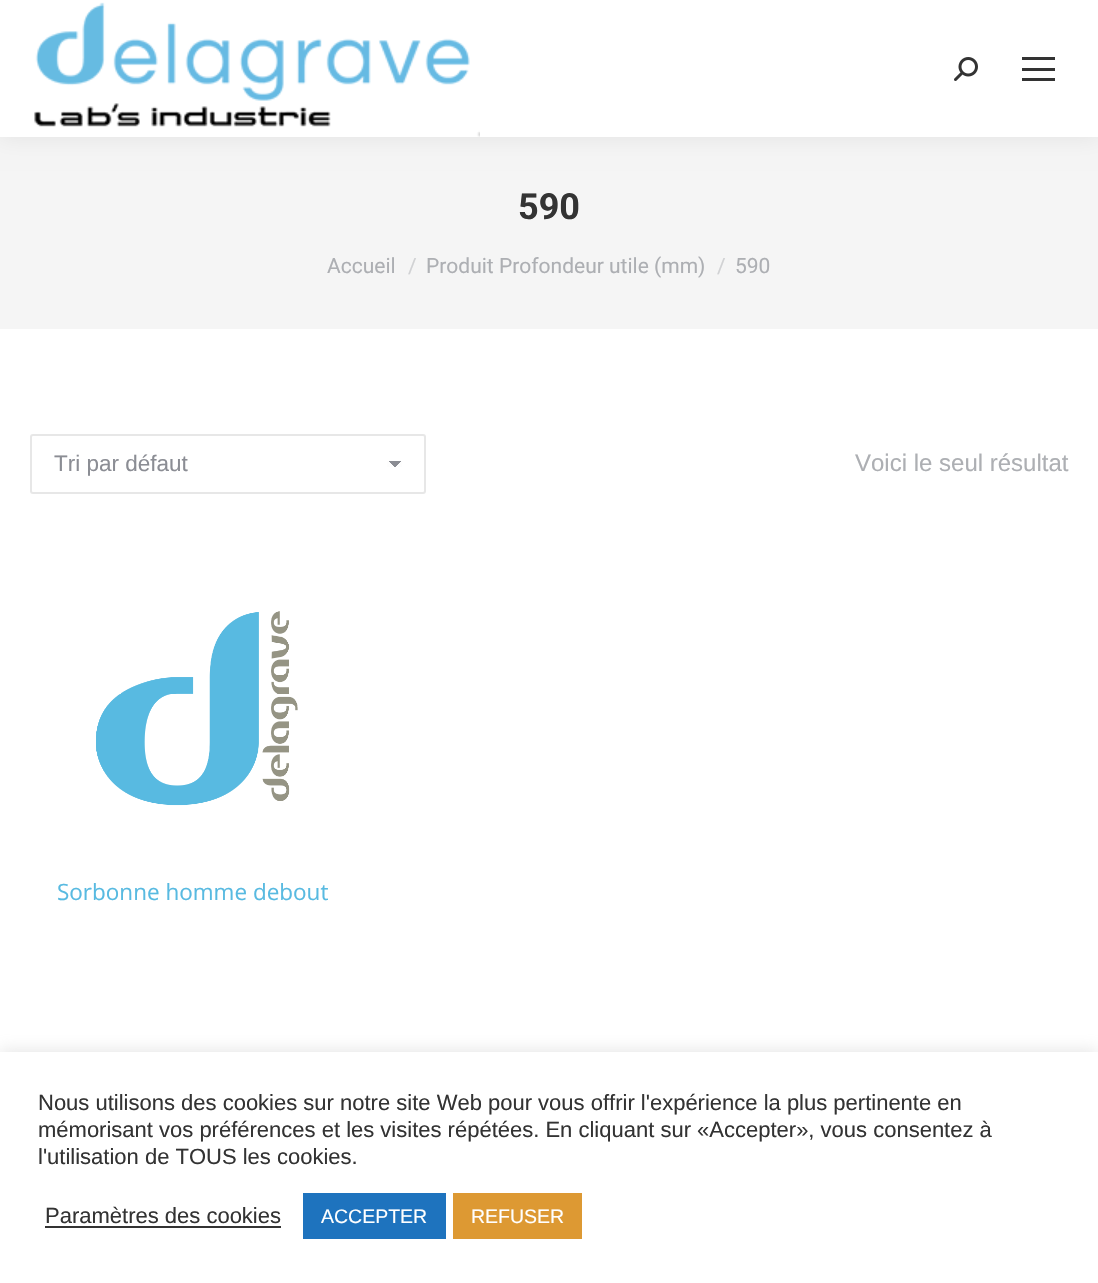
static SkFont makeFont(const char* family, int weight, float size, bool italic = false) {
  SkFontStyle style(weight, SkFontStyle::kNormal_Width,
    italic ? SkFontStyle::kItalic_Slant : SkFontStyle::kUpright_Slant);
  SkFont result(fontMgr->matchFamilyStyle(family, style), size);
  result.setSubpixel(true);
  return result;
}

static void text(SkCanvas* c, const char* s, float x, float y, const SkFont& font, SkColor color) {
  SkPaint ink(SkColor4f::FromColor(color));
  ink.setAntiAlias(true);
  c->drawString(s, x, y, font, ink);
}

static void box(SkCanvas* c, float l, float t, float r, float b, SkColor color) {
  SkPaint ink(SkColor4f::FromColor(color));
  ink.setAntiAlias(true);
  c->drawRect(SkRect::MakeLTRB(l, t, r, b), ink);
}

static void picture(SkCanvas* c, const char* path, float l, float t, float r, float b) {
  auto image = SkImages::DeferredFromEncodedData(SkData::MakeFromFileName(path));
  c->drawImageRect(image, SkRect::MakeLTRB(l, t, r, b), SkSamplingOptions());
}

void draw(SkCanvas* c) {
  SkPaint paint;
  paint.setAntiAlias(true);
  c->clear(0xffffffff);
  box(c, 0, 137, 1098, 329, 0xfff5f5f5);
  paint.setColor(0x12000000);
  paint.setMaskFilter(SkMaskFilter::MakeBlur(kNormal_SkBlurStyle, 11));
  c->drawRect(SkRect::MakeLTRB(-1, -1, 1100, 138), paint);
  paint.setMaskFilter(nullptr);
  box(c, 0, 0, 1098, 137, 0xffffffff);
  picture(c, "img_01.png", 34, 2, 480, 137);
  picture(c, "img_02.png", 954, 57, 978, 81);
  box(c, 1022, 57, 1055, 60, 0xff333333);
  box(c, 1022, 68, 1055, 71, 0xff333333);
  box(c, 1022, 78, 1055, 81, 0xff333333);
  SkFont face1 = makeFont("Roboto", 700, 36);
  text(c, "590", 518, 219, face1, 0xff333333);
  SkFont face2 = makeFont("Roboto", 400, 21);
  text(c, "Accueil", 327, 273, face2, 0xffadafb3);
  text(c, "/", 408, 273, face2, 0xffd1d2d4);
  text(c, "Produit Profondeur utile (mm)", 426, 273, face2, 0xffadafb3);
  text(c, "/", 717, 273, face2, 0xffd1d2d4);
  text(c, "590", 735, 273, face2, 0xffadafb3);
  {
    const SkColor colors[] = {0xff8b8d94, 0xfffdfdfd};
    const float stops[] = {0.5f, 0.5f};
    const SkPoint ends[] = {{395, 460}, {402, 467}};
    paint.setShader(SkGradientShader::MakeLinear(ends, colors, stops, 2, SkTileMode::kClamp));
    paint.setAlpha(255);
  }
  c->drawRect(SkRect::MakeLTRB(395, 461, 402, 467), paint);
  {
    const SkColor colors[] = {0xfffdfdfd, 0xff8b8d94};
    const float stops[] = {0.5f, 0.5f};
    const SkPoint ends[] = {{387, 467}, {395, 460}};
    paint.setShader(SkGradientShader::MakeLinear(ends, colors, stops, 2, SkTileMode::kClamp));
    paint.setAlpha(255);
  }
  c->drawRect(SkRect::MakeLTRB(387, 461, 395, 467), paint);
  paint.setStyle(SkPaint::kStroke_Style);
  paint.setStrokeWidth(2);
  paint.setShader(nullptr);
  paint.setColor(0xffe7e7e7);
  c->drawRoundRect(SkRect::MakeLTRB(31, 435, 425, 493), 2, 2, paint);
  SkFont face3 = makeFont("Liberation Sans", 400, 22.5f);
  text(c, "Tri par défaut", 54, 471, face3, 0xff8b8d94);
  SkFont face4 = makeFont("Liberation Sans", 400, 24);
  text(c, "Voici le seul résultat", 855, 471, face4, 0xffadafb3);
  picture(c, "img_03.png", 96, 611, 298, 806);
  SkFont face5 = makeFont("Open Sans", 400, 22.5f);
  text(c, "Sorbonne homme debout", 57, 900, face5, 0xff58bae1);
  paint.setStyle(SkPaint::kFill_Style);
  paint.setColor(0x4dacabab);
  paint.setMaskFilter(SkMaskFilter::MakeBlur(kNormal_SkBlurStyle, 7.5f));
  c->drawRect(SkRect::MakeLTRB(0, 1050, 1098, 1283), paint);
  paint.setMaskFilter(nullptr);
  box(c, 0, 1052, 1098, 1283, 0xffffffff);
  SkFont face6 = makeFont("Liberation Sans", 400, 22);
  text(c, "Nous utilisons des cookies sur notre site Web pour vous offrir l'expérience la plus pertinente en", 38, 1110, face6, 0xff333333);
  text(c, "mémorisant vos préférences et les visites répétées. En cliquant sur «Accepter», vous consentez à", 38, 1137, face6, 0xff333333);
  text(c, "l'utilisation de TOUS les cookies.", 38, 1164, face6, 0xff333333);
  text(c, "Paramètres des cookies", 45, 1223, face6, 0xff333333);
  box(c, 45, 1226, 281, 1228, 0xff333333);
  box(c, 303, 1193, 446, 1239, 0xff1e73be);
  SkFont face7 = makeFont("Liberation Sans", 400, 19.5f);
  text(c, "ACCEPTER", 321, 1223, face7, 0xffffffff);
  box(c, 453, 1193, 582, 1239, 0xffdd9933);
  text(c, "REFUSER", 471, 1223, face7, 0xffffffff);
}
